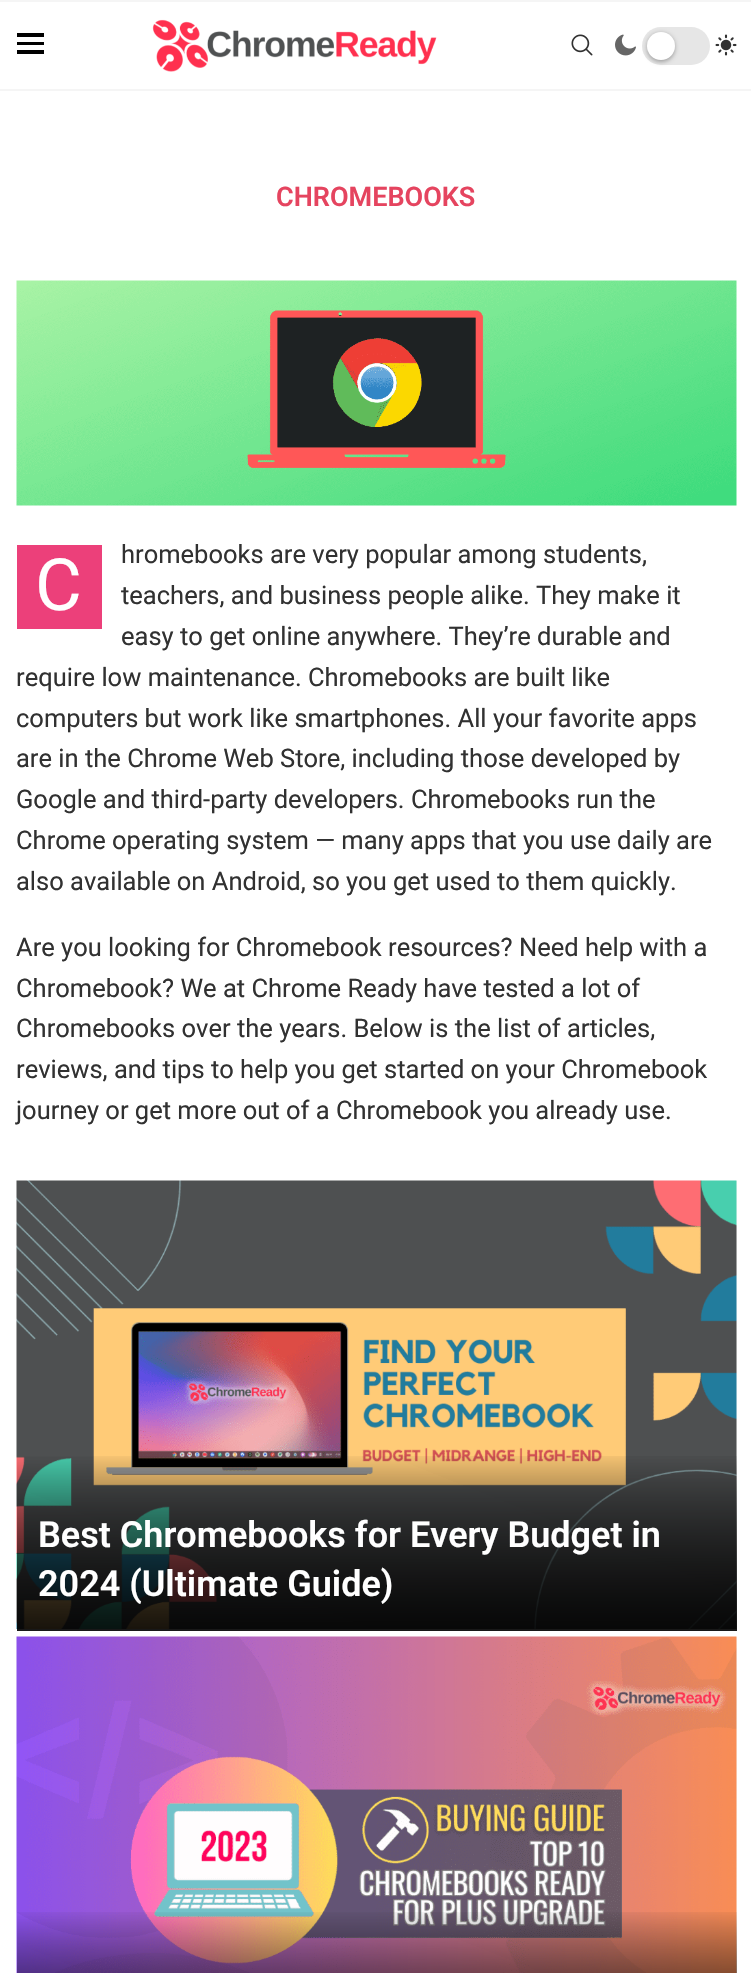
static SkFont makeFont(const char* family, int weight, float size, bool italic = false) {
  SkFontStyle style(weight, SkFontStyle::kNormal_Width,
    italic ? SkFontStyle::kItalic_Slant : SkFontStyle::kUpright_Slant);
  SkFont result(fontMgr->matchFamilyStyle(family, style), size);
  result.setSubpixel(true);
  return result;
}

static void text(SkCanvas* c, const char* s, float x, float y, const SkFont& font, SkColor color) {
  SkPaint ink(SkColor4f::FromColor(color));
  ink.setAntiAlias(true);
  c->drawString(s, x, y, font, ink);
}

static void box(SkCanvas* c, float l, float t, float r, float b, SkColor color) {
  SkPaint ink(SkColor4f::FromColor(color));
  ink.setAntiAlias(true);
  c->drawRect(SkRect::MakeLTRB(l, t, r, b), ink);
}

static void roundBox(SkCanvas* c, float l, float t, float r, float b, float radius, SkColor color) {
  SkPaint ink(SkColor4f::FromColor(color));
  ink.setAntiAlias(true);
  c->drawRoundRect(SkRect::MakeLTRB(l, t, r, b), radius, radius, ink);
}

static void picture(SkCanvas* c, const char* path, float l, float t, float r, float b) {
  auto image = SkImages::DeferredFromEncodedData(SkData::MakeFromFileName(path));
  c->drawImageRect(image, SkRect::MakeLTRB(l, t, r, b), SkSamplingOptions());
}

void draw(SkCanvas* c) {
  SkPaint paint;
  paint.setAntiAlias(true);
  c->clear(0xffffffff);
  box(c, 0, 0, 751, 2, 0xfff5f5f5);
  box(c, 0, 89, 751, 91, 0xfff5f5f5);
  box(c, 17, 33, 44, 37, 0xff000000);
  box(c, 17, 42, 44, 45, 0xff000000);
  box(c, 17, 50, 44, 54, 0xff000000);
  picture(c, "img_01.png", 152, 19, 437, 72);
  picture(c, "img_02.png", 571, 34, 593, 56);
  picture(c, "img_03.png", 615, 34, 636, 56);
  roundBox(c, 642, 27, 710, 65, 19, 0xffe6e6e6);
  paint.setColor(0x4d000000);
  paint.setMaskFilter(SkMaskFilter::MakeBlur(kNormal_SkBlurStyle, 2));
  c->drawRoundRect(SkRect::MakeLTRB(647, 33, 675, 62), 14, 14, paint);
  paint.setMaskFilter(nullptr);
  paint.setColor(0xffffffff);
  c->drawCircle(661, 46, 14, paint);
  picture(c, "img_04.png", 715, 34, 737, 56);
  SkFont face1 = makeFont("Roboto", 600, 27);
  text(c, "CHROMEBOOKS", 276, 206, face1, 0xffe5445f);
  picture(c, "img_05.png", 16, 280, 737, 506);
  box(c, 17, 545, 102, 629, 0xffec407a);
  SkFont face2 = makeFont("Roboto", 400, 72);
  text(c, "C", 35, 610, face2, 0xffffffff);
  SkFont face3 = makeFont("Roboto", 400, 25.5f);
  text(c, "hromebooks are very popular among students,", 121, 563, face3, 0xff313131);
  text(c, "teachers, and business people alike. They make it", 121, 604, face3, 0xff313131);
  text(c, "easy to get online anywhere. They’re durable and", 121, 645, face3, 0xff313131);
  text(c, "require low maintenance. Chromebooks are built like", 16, 686, face3, 0xff313131);
  text(c, "computers but work like smartphones. All your favorite apps", 16, 727, face3, 0xff313131);
  text(c, "are in the Chrome Web Store, including those developed by", 16, 767, face3, 0xff313131);
  text(c, "Google and third-party developers. Chromebooks run the", 16, 808, face3, 0xff313131);
  text(c, "Chrome operating system — many apps that you use daily are", 16, 849, face3, 0xff313131);
  text(c, "also available on Android, so you get used to them quickly.", 16, 890, face3, 0xff313131);
  text(c, "Are you looking for Chromebook resources? Need help with a", 16, 956, face3, 0xff313131);
  text(c, "Chromebook? We at Chrome Ready have tested a lot of", 16, 997, face3, 0xff313131);
  text(c, "Chromebooks over the years. Below is the list of articles,", 16, 1037, face3, 0xff313131);
  text(c, "reviews, and tips to help you get started on your Chromebook", 16, 1078, face3, 0xff313131);
  text(c, "journey or get more out of a Chromebook you already use.", 16, 1119, face3, 0xff313131);
  box(c, 736, 1181, 737, 1629, 0xfff5f5f5);
  picture(c, "img_06.png", 16, 1180, 737, 1629);
  {
    const SkColor colors[] = {0x00000000, 0xb3000000};
    const float stops[] = {0.6f, 1};
    const SkPoint ends[] = {{376, 1181}, {377, 1631}};
    paint.setShader(SkGradientShader::MakeLinear(ends, colors, stops, 2, SkTileMode::kClamp));
    paint.setAlpha(255);
  }
  c->drawRect(SkRect::MakeLTRB(17, 1456, 737, 1631), paint);
  c->drawRect(SkRect::MakeLTRB(17, 1456, 737, 1631), paint);
  SkFont face4 = makeFont("Roboto", 600, 36);
  text(c, "Best Chromebooks for Every Budget in", 38, 1547, face4, 0xffffffff);
  text(c, "2024 (Ultimate Guide)", 38, 1596, face4, 0xffffffff);
  box(c, 736, 1637, 737, 1973, 0xfff5f5f5);
  picture(c, "img_07.png", 16, 1636, 737, 1973);
  {
    const SkColor colors[] = {0x00000000, 0xb3000000};
    const float stops[] = {0.6f, 1};
    const SkPoint ends[] = {{376, 1637}, {377, 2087}};
    paint.setShader(SkGradientShader::MakeLinear(ends, colors, stops, 2, SkTileMode::kClamp));
    paint.setAlpha(255);
  }
  c->drawRect(SkRect::MakeLTRB(17, 1912, 737, 1973), paint);
  c->drawRect(SkRect::MakeLTRB(17, 1912, 737, 1973), paint);
}
